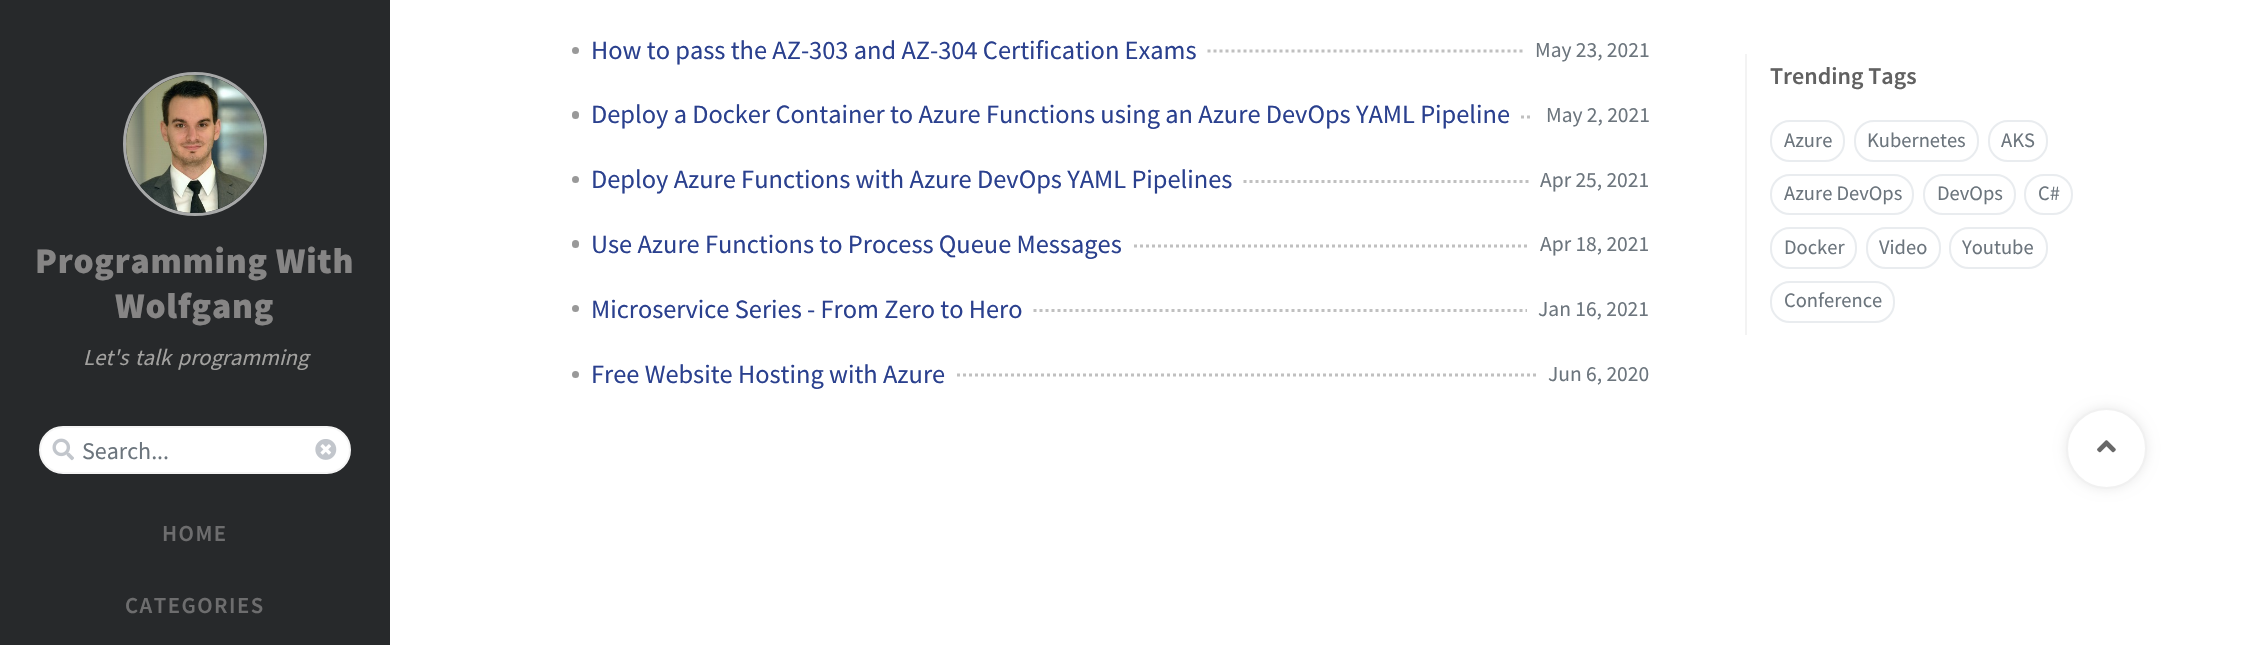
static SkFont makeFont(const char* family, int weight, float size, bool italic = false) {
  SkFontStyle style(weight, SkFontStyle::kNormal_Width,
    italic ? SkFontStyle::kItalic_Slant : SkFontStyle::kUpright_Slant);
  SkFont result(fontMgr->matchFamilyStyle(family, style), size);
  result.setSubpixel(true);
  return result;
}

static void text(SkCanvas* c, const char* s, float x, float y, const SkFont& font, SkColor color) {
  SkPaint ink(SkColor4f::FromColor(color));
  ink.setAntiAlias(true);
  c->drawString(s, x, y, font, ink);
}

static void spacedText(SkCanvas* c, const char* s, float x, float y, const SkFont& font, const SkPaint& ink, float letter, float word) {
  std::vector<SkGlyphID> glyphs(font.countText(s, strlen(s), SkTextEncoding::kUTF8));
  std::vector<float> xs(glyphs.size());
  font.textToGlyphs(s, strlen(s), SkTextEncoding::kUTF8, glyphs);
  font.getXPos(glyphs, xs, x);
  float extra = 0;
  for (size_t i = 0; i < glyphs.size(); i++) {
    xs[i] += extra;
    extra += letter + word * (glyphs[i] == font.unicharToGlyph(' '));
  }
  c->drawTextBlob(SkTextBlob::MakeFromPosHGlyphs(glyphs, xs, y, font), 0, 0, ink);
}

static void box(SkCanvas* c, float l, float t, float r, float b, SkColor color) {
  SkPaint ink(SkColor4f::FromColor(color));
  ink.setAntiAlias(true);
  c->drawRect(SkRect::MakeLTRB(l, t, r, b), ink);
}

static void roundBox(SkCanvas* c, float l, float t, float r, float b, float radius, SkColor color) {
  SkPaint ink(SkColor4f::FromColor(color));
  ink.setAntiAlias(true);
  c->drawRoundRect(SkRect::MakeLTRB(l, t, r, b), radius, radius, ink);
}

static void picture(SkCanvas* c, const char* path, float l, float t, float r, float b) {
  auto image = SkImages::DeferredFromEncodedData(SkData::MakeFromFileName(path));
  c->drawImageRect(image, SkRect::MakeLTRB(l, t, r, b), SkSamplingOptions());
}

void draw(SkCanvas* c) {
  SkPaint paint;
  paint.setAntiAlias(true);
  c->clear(0xffffffff);
  box(c, 0, 0, 390, 645, 0xff27292b);
  paint.setStyle(SkPaint::kStroke_Style);
  paint.setStrokeWidth(3);
  paint.setColor(0xffa7a8a8);
  c->drawCircle(195, 144, 70.5f, paint);
  picture(c, "img_01.png", 126, 75, 264, 213);
  SkFont face1 = makeFont("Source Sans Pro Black", 900, 36);
  paint.setStyle(SkPaint::kFill_Style);
  paint.setColor(0xff868585);
  spacedText(c, "Programming With", 35, 273, face1, paint, 0.75f, 0);
  spacedText(c, "Wolfgang", 115, 318, face1, paint, 0.75f, 0);
  SkFont face2 = makeFont("Source Sans Pro", 400, 22.75f, true);
  paint.setColor(0xffa2a19f);
  spacedText(c, "Let's talk programming", 83, 365, face2, paint, 0, 2);
  paint.setColor(0xffffffff);
  c->drawRoundRect(SkRect::MakeLTRB(40, 427, 350, 473), 23, 23, paint);
  paint.setStyle(SkPaint::kStroke_Style);
  paint.setStrokeWidth(2);
  paint.setColor(0xfff5f5f5);
  c->drawRoundRect(SkRect::MakeLTRB(40, 427, 350, 473), 23, 23, paint);
  picture(c, "img_02.png", 52, 438, 74, 461);
  SkFont face3 = makeFont("Source Sans Pro", 400, 24);
  text(c, "Search...", 82, 459, face3, 0xff6c757d);
  picture(c, "img_03.png", 315, 439, 337, 460);
  SkFont face4 = makeFont("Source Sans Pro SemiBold", 600, 22.75f);
  paint.setStyle(SkPaint::kFill_Style);
  paint.setColor(0xff6d6d6e);
  spacedText(c, "HOME", 162, 541, face4, paint, 1.5f, 0);
  spacedText(c, "CATEGORIES", 125, 613, face4, paint, 1.5f, 0);
  paint.setColor(0xff999999);
  c->drawCircle(575.5f, 50.5f, 3.5f, paint);
  SkFont face5 = makeFont("Source Sans Pro", 400, 26.4f);
  text(c, "How to pass the AZ-303 and AZ-304 Certification Exams", 591, 59, face5, 0xff2a408e);
  paint.setStyle(SkPaint::kStroke_Style);
  paint.setStrokeWidth(3);
  paint.setColor(0xffc0c0c0);
  paint.setPathEffect(SkDashPathEffect::Make({{3, 3}}, 0));
  c->drawPath(SkPathBuilder().moveTo(1207.5f, 51).lineTo(1522.5f, 51).detach(), paint);
  paint.setPathEffect(nullptr);
  SkFont face6 = makeFont("Source Sans Pro", 400, 21.5f);
  text(c, "May 23, 2021", 1535, 57, face6, 0xff6c757d);
  roundBox(c, 572, 111, 579, 119, 3.5f, 0xff999999);
  text(c, "Deploy a Docker Container to Azure Functions using an Azure DevOps YAML Pipeline", 591, 123, face5, 0xff2a408e);
  c->drawPath(SkPathBuilder().moveTo(1521, 117).lineTo(1524, 117).moveTo(1527, 117).lineTo(1530, 117).detach(), paint);
  text(c, "May 2, 2021", 1546, 122, face6, 0xff6c757d);
  paint.setStyle(SkPaint::kFill_Style);
  paint.setColor(0xff999999);
  c->drawCircle(575.5f, 179.5f, 3.5f, paint);
  text(c, "Deploy Azure Functions with Azure DevOps YAML Pipelines", 591, 188, face5, 0xff2a408e);
  paint.setStyle(SkPaint::kStroke_Style);
  paint.setColor(0xffc0c0c0);
  paint.setPathEffect(SkDashPathEffect::Make({{3, 3}}, 0));
  c->drawPath(SkPathBuilder().moveTo(1243.5f, 181.5f).lineTo(1528.5f, 181.5f).detach(), paint);
  paint.setPathEffect(nullptr);
  text(c, "Apr 25, 2021", 1540, 187, face6, 0xff6c757d);
  roundBox(c, 572, 240, 579, 248, 3.5f, 0xff999999);
  text(c, "Use Azure Functions to Process Queue Messages", 591, 253, face5, 0xff2a408e);
  paint.setPathEffect(SkDashPathEffect::Make({{3, 3}}, 0));
  c->drawPath(SkPathBuilder().moveTo(1134, 246).lineTo(1528.5f, 246).detach(), paint);
  paint.setPathEffect(nullptr);
  text(c, "Apr 18, 2021", 1540, 251, face6, 0xff6c757d);
  paint.setStyle(SkPaint::kFill_Style);
  paint.setColor(0xff999999);
  c->drawCircle(575.5f, 308.5f, 3.5f, paint);
  text(c, "Microservice Series - From Zero to Hero", 591, 318, face5, 0xff2a408e);
  paint.setStyle(SkPaint::kStroke_Style);
  paint.setColor(0xffc0c0c0);
  paint.setPathEffect(SkDashPathEffect::Make({{3, 3}}, 0));
  c->drawPath(SkPathBuilder().moveTo(1033.5f, 310.5f).lineTo(1527, 310.5f).detach(), paint);
  paint.setPathEffect(nullptr);
  text(c, "Jan 16, 2021", 1538, 316, face6, 0xff6c757d);
  paint.setStyle(SkPaint::kFill_Style);
  paint.setColor(0xff999999);
  c->drawCircle(575.5f, 374.5f, 3.5f, paint);
  text(c, "Free Website Hosting with Azure", 591, 383, face5, 0xff2a408e);
  paint.setStyle(SkPaint::kStroke_Style);
  paint.setColor(0xffc0c0c0);
  paint.setPathEffect(SkDashPathEffect::Make({{3, 3}}, 0));
  c->drawPath(SkPathBuilder().moveTo(957, 375).lineTo(1536, 375).detach(), paint);
  paint.setPathEffect(nullptr);
  text(c, "Jun 6, 2020", 1548, 381, face6, 0xff6c757d);
  box(c, 1745, 54, 1747, 335, 0xfff3f3f3);
  SkFont face7 = makeFont("Source Sans Pro SemiBold", 600, 24);
  text(c, "Trending Tags", 1770, 84, face7, 0xff616161);
  paint.setStrokeWidth(2);
  paint.setColor(0xffe9ecef);
  c->drawRoundRect(SkRect::MakeLTRB(1771, 121, 1844, 161), 19, 19, paint);
  SkFont face8 = makeFont("Source Sans Pro", 400, 20.5f);
  text(c, "Azure", 1784, 147, face8, 0xff6c757d);
  c->drawRoundRect(SkRect::MakeLTRB(1855, 121, 1978, 161), 19, 19, paint);
  text(c, "Kubernetes", 1867, 147, face8, 0xff6c757d);
  c->drawRoundRect(SkRect::MakeLTRB(1989, 121, 2047, 161), 19, 19, paint);
  text(c, "AKS", 2001, 147, face8, 0xff6c757d);
  c->drawRoundRect(SkRect::MakeLTRB(1771, 175, 1913, 214), 19, 19, paint);
  text(c, "Azure DevOps", 1784, 200, face8, 0xff6c757d);
  c->drawRoundRect(SkRect::MakeLTRB(1924, 175, 2015, 214), 19, 19, paint);
  text(c, "DevOps", 1937, 200, face8, 0xff6c757d);
  c->drawRoundRect(SkRect::MakeLTRB(2025, 175, 2072, 214), 19, 19, paint);
  text(c, "C#", 2038, 200, face8, 0xff6c757d);
  c->drawRoundRect(SkRect::MakeLTRB(1771, 228, 1856, 268), 19, 19, paint);
  text(c, "Docker", 1784, 254, face8, 0xff6c757d);
  c->drawRoundRect(SkRect::MakeLTRB(1867, 228, 1940, 268), 19, 19, paint);
  text(c, "Video", 1879, 254, face8, 0xff6c757d);
  c->drawRoundRect(SkRect::MakeLTRB(1950, 228, 2047, 268), 19, 19, paint);
  text(c, "Youtube", 1962, 254, face8, 0xff6c757d);
  c->drawRoundRect(SkRect::MakeLTRB(1771, 282, 1894, 322), 19, 19, paint);
  text(c, "Conference", 1784, 307, face8, 0xff6c757d);
  paint.setStyle(SkPaint::kFill_Style);
  paint.setColor(0xffeaeaea);
  paint.setMaskFilter(SkMaskFilter::MakeBlur(kNormal_SkBlurStyle, 6));
  c->drawRoundRect(SkRect::MakeLTRB(2066, 408, 2147, 489), 40.5f, 40.5f, paint);
  paint.setMaskFilter(nullptr);
  paint.setColor(0xffffffff);
  c->drawCircle(2106.5f, 448.5f, 39.5f, paint);
  paint.setStyle(SkPaint::kStroke_Style);
  paint.setColor(0xfff1f1f1);
  c->drawCircle(2106.5f, 448.5f, 39.5f, paint);
  picture(c, "img_04.png", 2097, 440, 2116, 453);
}
